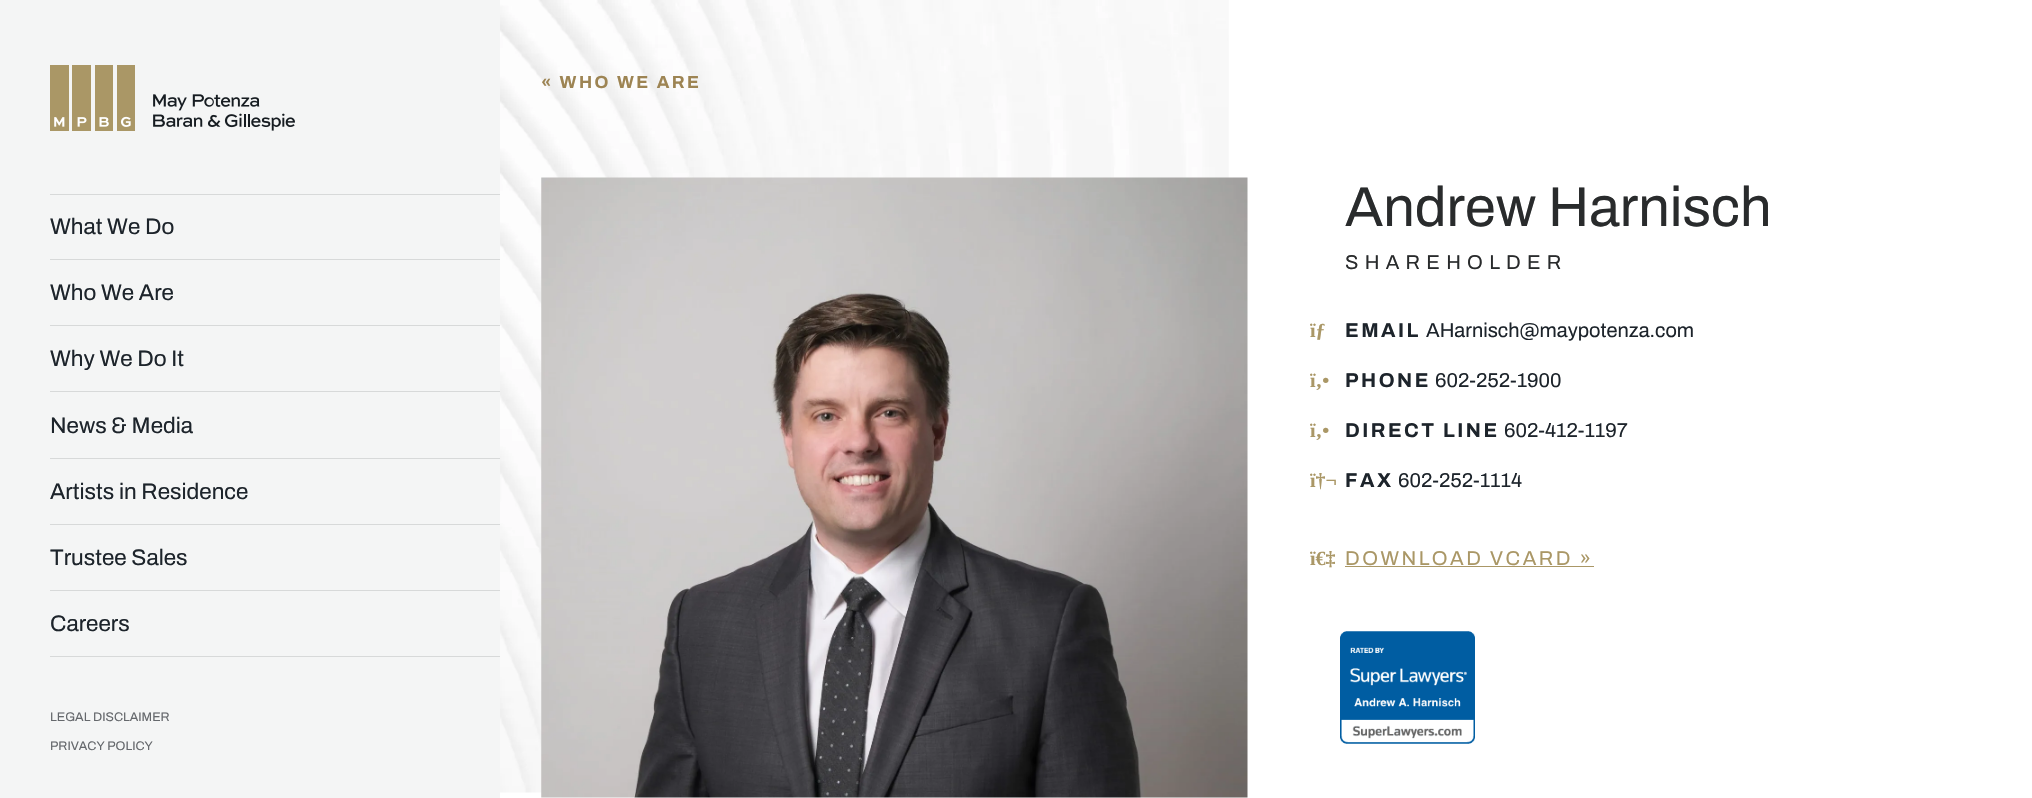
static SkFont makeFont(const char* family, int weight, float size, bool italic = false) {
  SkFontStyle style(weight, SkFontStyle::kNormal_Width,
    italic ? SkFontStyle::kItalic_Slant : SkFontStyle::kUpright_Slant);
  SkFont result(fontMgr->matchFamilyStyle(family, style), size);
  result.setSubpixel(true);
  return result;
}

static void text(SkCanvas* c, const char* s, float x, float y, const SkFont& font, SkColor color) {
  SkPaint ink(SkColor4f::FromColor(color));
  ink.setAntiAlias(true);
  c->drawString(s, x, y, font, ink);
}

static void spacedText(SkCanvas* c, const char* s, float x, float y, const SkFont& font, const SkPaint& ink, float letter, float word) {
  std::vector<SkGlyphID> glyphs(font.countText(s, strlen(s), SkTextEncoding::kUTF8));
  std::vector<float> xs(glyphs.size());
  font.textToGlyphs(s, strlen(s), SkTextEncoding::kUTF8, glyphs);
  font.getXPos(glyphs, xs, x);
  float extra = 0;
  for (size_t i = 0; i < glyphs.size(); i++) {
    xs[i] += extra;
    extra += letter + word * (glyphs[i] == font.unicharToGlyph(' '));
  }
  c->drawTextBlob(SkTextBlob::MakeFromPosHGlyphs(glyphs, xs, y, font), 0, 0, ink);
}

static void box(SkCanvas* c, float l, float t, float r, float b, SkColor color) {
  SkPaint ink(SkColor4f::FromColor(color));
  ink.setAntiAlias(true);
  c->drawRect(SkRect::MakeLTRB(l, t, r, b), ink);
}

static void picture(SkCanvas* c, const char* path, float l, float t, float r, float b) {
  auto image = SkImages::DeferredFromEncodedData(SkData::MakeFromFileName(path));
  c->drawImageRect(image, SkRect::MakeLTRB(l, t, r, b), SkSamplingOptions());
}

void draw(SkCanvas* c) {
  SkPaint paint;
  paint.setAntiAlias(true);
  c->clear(0xffffffff);
  box(c, 0, 0, 500, 798, 0xfff4f5f5);
  picture(c, "img_01.png", 50, 65, 295, 131);
  box(c, 50, 194, 500, 195, 0xffd7d9d9);
  SkFont face1 = makeFont("Archivo", 400, 22.5f);
  text(c, "What We Do", 50, 234, face1, 0xff1d242b);
  box(c, 50, 259, 500, 260, 0xffd7d9d9);
  text(c, "Who We Are", 50, 300, face1, 0xff1d242b);
  box(c, 50, 325, 500, 326, 0xffd7d9d9);
  text(c, "Why We Do It", 50, 366, face1, 0xff1d242b);
  box(c, 50, 391, 500, 392, 0xffd7d9d9);
  text(c, "News & Media", 50, 433, face1, 0xff1d242b);
  box(c, 50, 458, 500, 459, 0xffd7d9d9);
  text(c, "Artists in Residence", 50, 499, face1, 0xff1d242b);
  box(c, 50, 524, 500, 525, 0xffd7d9d9);
  text(c, "Trustee Sales", 50, 565, face1, 0xff1d242b);
  box(c, 50, 590, 500, 591, 0xffd7d9d9);
  text(c, "Careers", 50, 631, face1, 0xff1d242b);
  box(c, 50, 656, 500, 657, 0xffd7d9d9);
  SkFont face2 = makeFont("Archivo", 400, 12.5f);
  text(c, "LEGAL DISCLAIMER", 50, 721, face2, 0xff65686c);
  text(c, "PRIVACY POLICY", 50, 750, face2, 0xff65686c);
  picture(c, "img_02.png", 500, 0, 1229, 793);
  SkFont face3 = makeFont("Archivo", 700, 17.5f);
  paint.setColor(0xff9d8453);
  spacedText(c, "« WHO WE ARE", 541, 88, face3, paint, 2.5f, 0);
  picture(c, "img_03.png", 541, 177, 1248, 798);
  SkFont face4 = makeFont("Archivo", 400, 56);
  text(c, "Andrew Harnisch", 1345, 226, face4, 0xff292b2c);
  SkFont face5 = makeFont("Archivo", 400, 20);
  paint.setColor(0xff292b2c);
  spacedText(c, "SHAREHOLDER", 1345, 269, face5, paint, 6.25f, 0);
  SkFont face6 = makeFont("Liberation Serif", 700, 20);
  text(c, "ïƒ", 1310, 337, face6, 0xffaa9766);
  SkFont face7 = makeFont("Archivo", 700, 20);
  paint.setColor(0xff1d242b);
  spacedText(c, "EMAIL", 1345, 337, face7, paint, 2.5f, 0);
  text(c, "AHarnisch@maypotenza.com", 1426, 337, face5, 0xff1d242b);
  text(c, "ï‚•", 1310, 387, face6, 0xffaa9766);
  spacedText(c, "PHONE", 1345, 387, face7, paint, 2.5f, 0);
  text(c, "602-252-1900", 1435, 387, face5, 0xff1d242b);
  text(c, "ï‚•", 1310, 437, face6, 0xffaa9766);
  spacedText(c, "DIRECT LINE", 1345, 437, face7, paint, 2.5f, 0);
  text(c, "602-412-1197", 1504, 437, face5, 0xff1d242b);
  text(c, "ï†¬", 1310, 487, face6, 0xffaa9766);
  spacedText(c, "FAX", 1345, 487, face7, paint, 2.5f, 0);
  text(c, "602-252-1114", 1398, 487, face5, 0xff1d242b);
  text(c, "ï€‡", 1310, 565, face6, 0xffaa9766);
  paint.setColor(0xffaa9766);
  spacedText(c, "DOWNLOAD VCARD »", 1345, 565, face5, paint, 2.5f, 0);
  box(c, 1345, 566, 1594, 567, 0xffaa9766);
  picture(c, "img_04.png", 1340, 631, 1475, 744);
}
